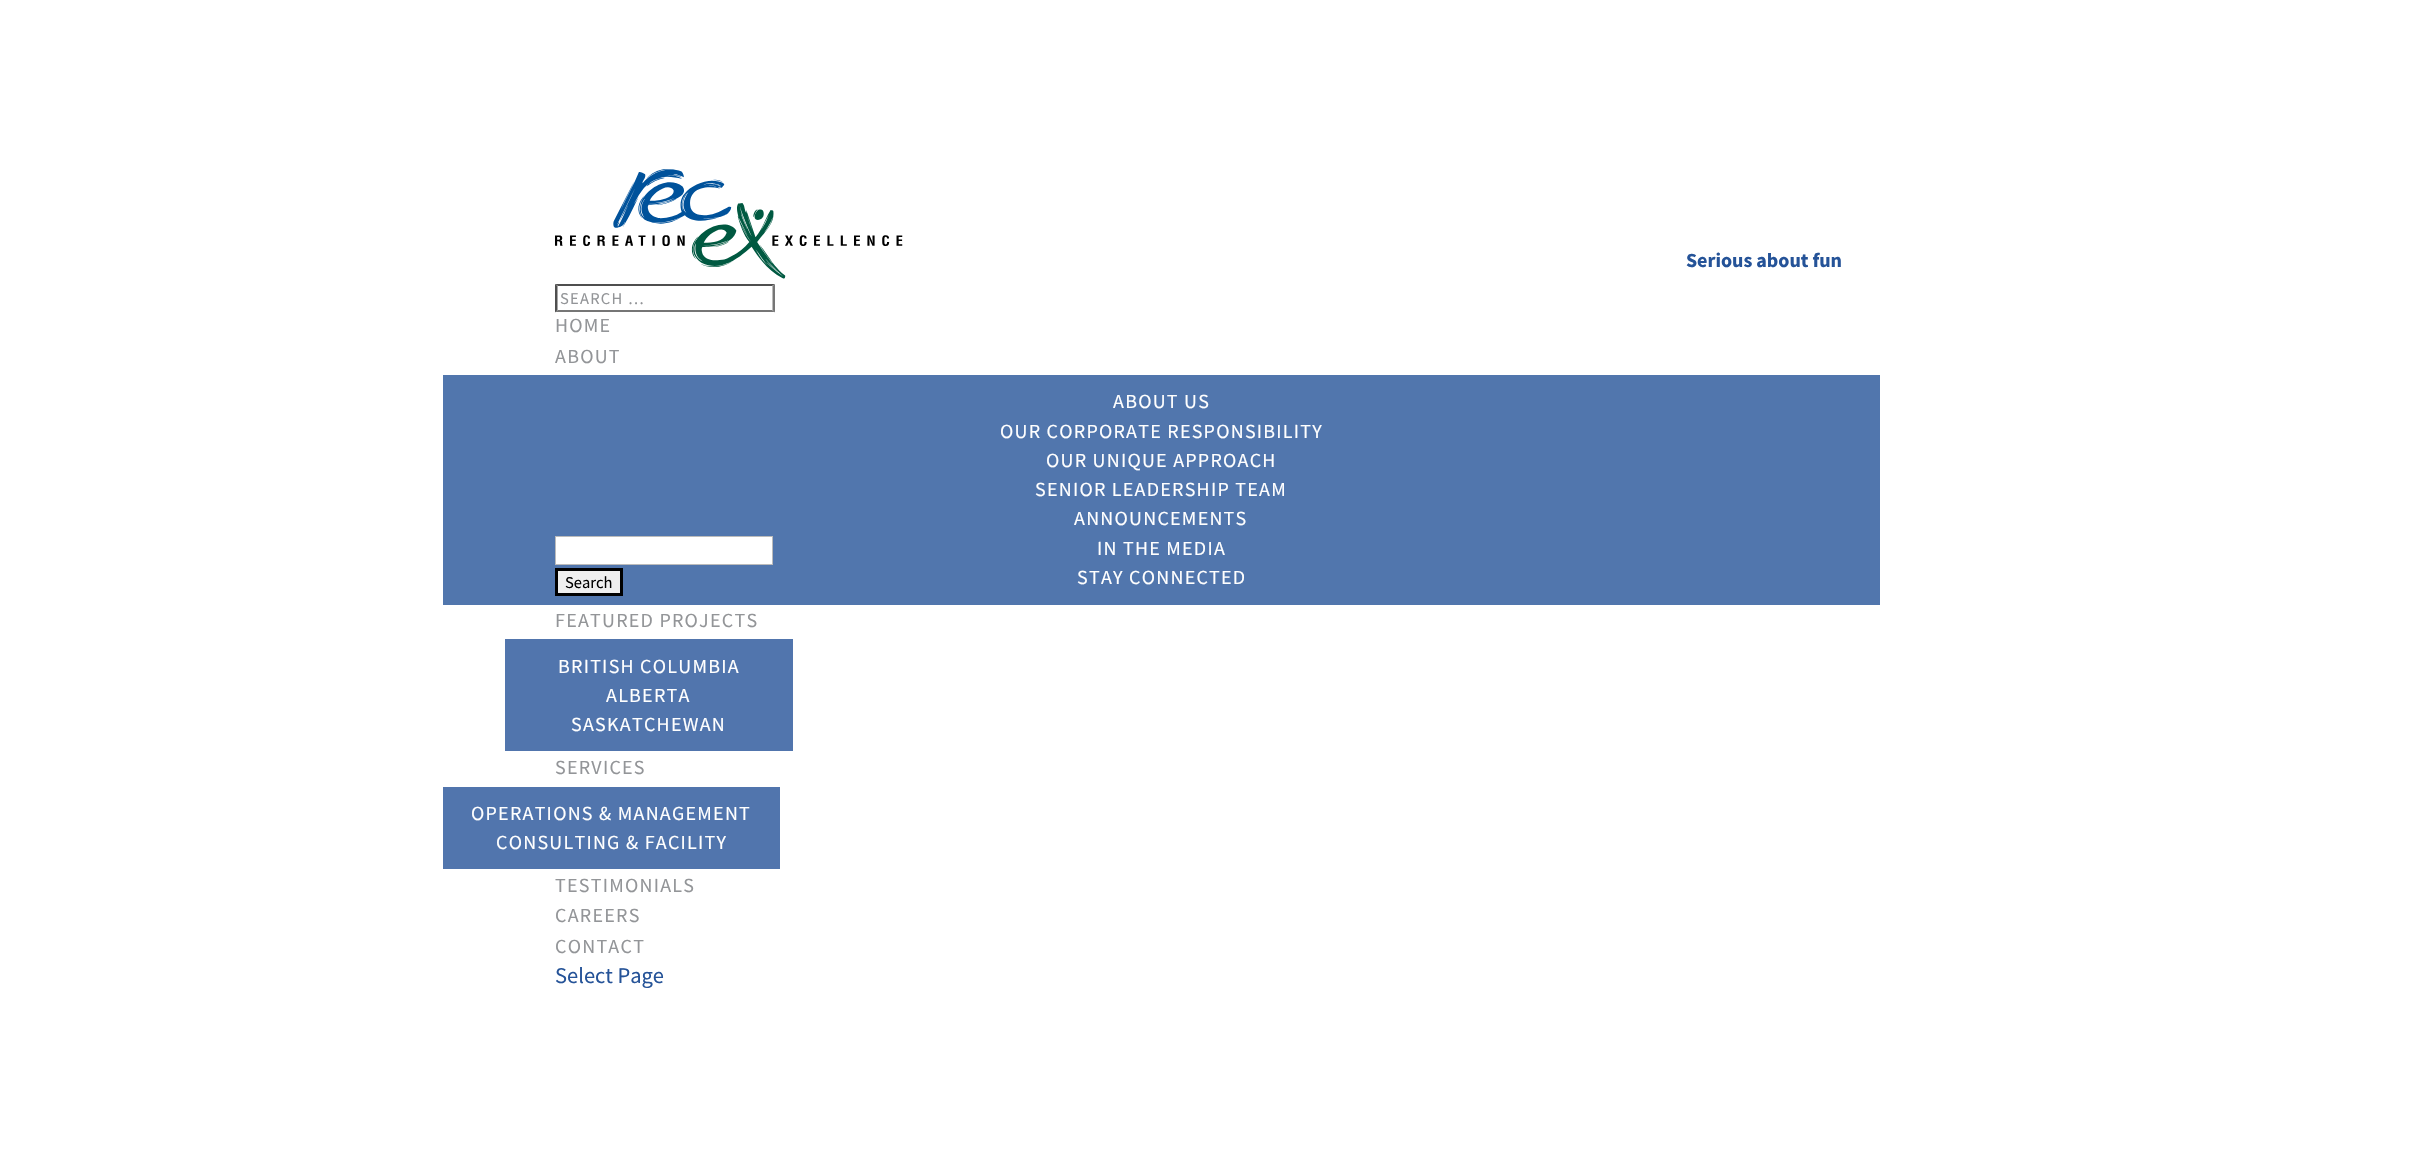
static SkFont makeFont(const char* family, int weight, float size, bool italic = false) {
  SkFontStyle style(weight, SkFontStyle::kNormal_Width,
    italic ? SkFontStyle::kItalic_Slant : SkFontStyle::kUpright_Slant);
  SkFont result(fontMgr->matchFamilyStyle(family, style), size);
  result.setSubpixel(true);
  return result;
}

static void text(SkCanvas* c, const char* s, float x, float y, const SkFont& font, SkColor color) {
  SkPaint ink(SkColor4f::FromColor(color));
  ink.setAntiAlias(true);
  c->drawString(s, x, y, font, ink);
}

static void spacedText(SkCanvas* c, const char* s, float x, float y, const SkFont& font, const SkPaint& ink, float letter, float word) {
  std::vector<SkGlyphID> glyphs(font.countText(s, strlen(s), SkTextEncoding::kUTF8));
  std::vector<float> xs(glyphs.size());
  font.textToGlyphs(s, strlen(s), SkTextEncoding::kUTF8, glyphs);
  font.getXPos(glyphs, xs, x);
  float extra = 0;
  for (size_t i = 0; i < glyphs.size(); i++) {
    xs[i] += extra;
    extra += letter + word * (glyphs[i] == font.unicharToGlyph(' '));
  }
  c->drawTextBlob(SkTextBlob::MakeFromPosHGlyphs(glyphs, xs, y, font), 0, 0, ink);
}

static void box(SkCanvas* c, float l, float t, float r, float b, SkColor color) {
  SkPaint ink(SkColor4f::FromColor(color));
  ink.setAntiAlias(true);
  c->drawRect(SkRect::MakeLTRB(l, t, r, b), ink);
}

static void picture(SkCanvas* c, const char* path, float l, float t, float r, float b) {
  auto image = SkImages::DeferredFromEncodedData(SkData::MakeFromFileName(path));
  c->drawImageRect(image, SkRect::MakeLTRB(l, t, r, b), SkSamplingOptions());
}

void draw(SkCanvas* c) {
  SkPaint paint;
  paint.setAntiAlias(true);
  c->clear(0xffffffff);
  picture(c, "img_01.png", 555, 169, 903, 279);
  SkFont face1 = makeFont("Source Sans Pro", 700, 20);
  text(c, "Serious about fun", 1686, 267, face1, 0xff255398);
  SkFont face2 = makeFont("Source Sans Pro", 400, 20);
  paint.setColor(0xff939598);
  spacedText(c, "HOME", 555, 332, face2, paint, 1.25f, 0);
  spacedText(c, "ABOUT", 555, 363, face2, paint, 1.25f, 0);
  box(c, 443, 375, 1880, 605, 0xff5176ad);
  paint.setColor(0xffffffff);
  spacedText(c, "ABOUT US", 1113, 408, face2, paint, 1.25f, 0);
  spacedText(c, "OUR CORPORATE RESPONSIBILITY", 1000, 438, face2, paint, 1.25f, 0);
  spacedText(c, "OUR UNIQUE APPROACH", 1046, 467, face2, paint, 1.25f, 0);
  spacedText(c, "SENIOR LEADERSHIP TEAM", 1035, 496, face2, paint, 1.25f, 0);
  spacedText(c, "ANNOUNCEMENTS", 1074, 525, face2, paint, 1.25f, 0);
  spacedText(c, "IN THE MEDIA", 1097, 555, face2, paint, 1.25f, 0);
  spacedText(c, "STAY CONNECTED", 1077, 584, face2, paint, 1.25f, 0);
  paint.setColor(0xff939598);
  spacedText(c, "FEATURED PROJECTS", 555, 627, face2, paint, 1.25f, 0);
  box(c, 505, 639, 793, 751, 0xff5175ad);
  paint.setColor(0xffffffff);
  spacedText(c, "BRITISH COLUMBIA", 558, 673, face2, paint, 1.25f, 0);
  spacedText(c, "ALBERTA", 606, 702, face2, paint, 1.25f, 0);
  spacedText(c, "SASKATCHEWAN", 571, 731, face2, paint, 1.25f, 0);
  paint.setColor(0xff939598);
  spacedText(c, "SERVICES", 555, 774, face2, paint, 1.25f, 0);
  box(c, 443, 787, 780, 869, 0xff5175ad);
  paint.setColor(0xffffffff);
  spacedText(c, "OPERATIONS & MANAGEMENT", 471, 820, face2, paint, 1.25f, 0);
  spacedText(c, "CONSULTING & FACILITY", 496, 849, face2, paint, 1.25f, 0);
  paint.setColor(0xff939598);
  spacedText(c, "TESTIMONIALS", 555, 892, face2, paint, 1.25f, 0);
  spacedText(c, "CAREERS", 555, 922, face2, paint, 1.25f, 0);
  spacedText(c, "CONTACT", 555, 953, face2, paint, 1.25f, 0);
  SkFont face3 = makeFont("Source Sans Pro", 400, 22.5f);
  text(c, "Select Page", 555, 983, face3, 0xff255398);
  paint.setColor(0xff4f4f4f);
  c->drawPath(SkPathBuilder().moveTo(555, 284).lineTo(775, 284).lineTo(772, 286).lineTo(558, 286).close().detach(), paint);
  paint.setColor(0xff767676);
  c->drawPath(SkPathBuilder().moveTo(775, 284).lineTo(775, 312.5f).lineTo(772.5f, 310).lineTo(772.5f, 286).close().detach(), paint);
  c->drawPath(SkPathBuilder().moveTo(775, 312).lineTo(555, 312).lineTo(558, 310).lineTo(772, 310).close().detach(), paint);
  paint.setColor(0xff4f4f4f);
  c->drawPath(SkPathBuilder().moveTo(555, 312.5f).lineTo(555, 284).lineTo(557.5f, 286).lineTo(557.5f, 310).close().detach(), paint);
  SkFont face4 = makeFont("Source Sans Pro", 400, 16.5f);
  paint.setColor(0xff939598);
  spacedText(c, "SEARCH …", 560, 304, face4, paint, 1.25f, 0);
  paint.setColor(0xffffffff);
  c->drawRect(SkRect::MakeLTRB(555.5f, 536.5f, 772.5f, 564.5f), paint);
  paint.setStyle(SkPaint::kStroke_Style);
  paint.setStrokeWidth(1);
  paint.setColor(0xffbbbbbb);
  c->drawRect(SkRect::MakeLTRB(555.5f, 536.5f, 772.5f, 564.5f), paint);
  paint.setStyle(SkPaint::kFill_Style);
  paint.setColor(0xffefefef);
  c->drawRect(SkRect::MakeLTRB(556.5f, 569.5f, 621.5f, 594.5f), paint);
  paint.setStyle(SkPaint::kStroke_Style);
  paint.setStrokeWidth(3);
  paint.setColor(0xff000000);
  c->drawRect(SkRect::MakeLTRB(556.5f, 569.5f, 621.5f, 594.5f), paint);
  text(c, "Search", 565, 588, face4, 0xff000000);
}
